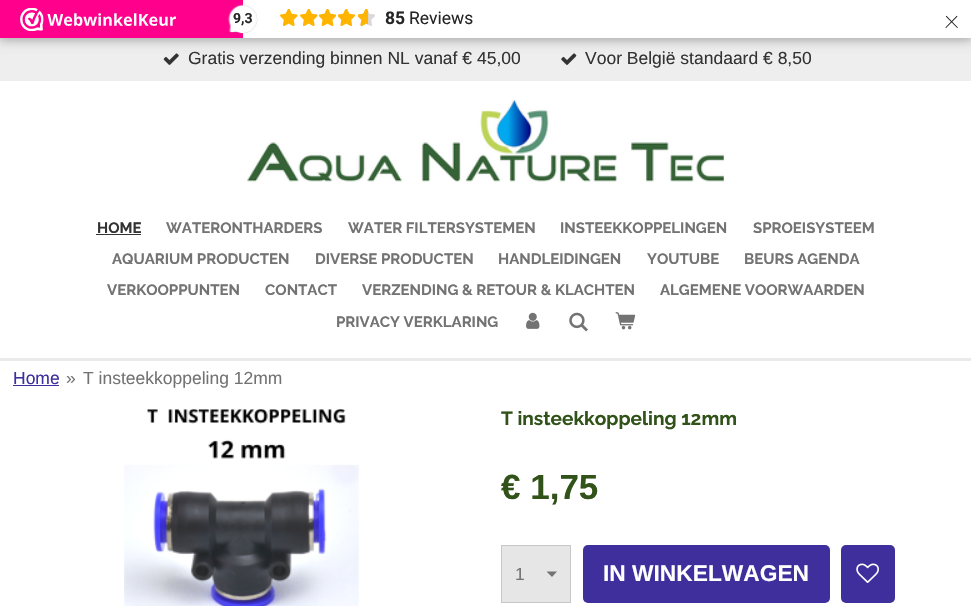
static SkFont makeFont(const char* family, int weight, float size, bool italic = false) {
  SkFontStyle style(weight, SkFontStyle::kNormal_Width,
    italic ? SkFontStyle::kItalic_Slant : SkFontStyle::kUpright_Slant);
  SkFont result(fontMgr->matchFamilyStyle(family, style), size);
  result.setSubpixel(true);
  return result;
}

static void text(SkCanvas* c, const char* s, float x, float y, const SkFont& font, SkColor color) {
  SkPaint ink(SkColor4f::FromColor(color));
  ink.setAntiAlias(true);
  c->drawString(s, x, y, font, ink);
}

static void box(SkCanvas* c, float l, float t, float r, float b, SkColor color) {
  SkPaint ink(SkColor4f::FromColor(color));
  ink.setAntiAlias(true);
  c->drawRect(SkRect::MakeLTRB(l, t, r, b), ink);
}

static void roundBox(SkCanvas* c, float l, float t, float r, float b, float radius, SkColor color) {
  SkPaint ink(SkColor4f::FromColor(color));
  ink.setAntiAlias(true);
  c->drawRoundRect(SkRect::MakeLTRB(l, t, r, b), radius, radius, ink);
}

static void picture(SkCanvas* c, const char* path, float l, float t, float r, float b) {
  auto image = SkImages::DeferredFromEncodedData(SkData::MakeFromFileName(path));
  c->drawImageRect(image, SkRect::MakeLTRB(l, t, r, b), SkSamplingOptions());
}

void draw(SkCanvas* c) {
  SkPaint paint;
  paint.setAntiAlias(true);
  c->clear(0xffffffff);
  box(c, 0, 38, 971, 81, 0xffeeeeee);
  picture(c, "img_08.png", 163, 53, 179, 65);
  picture(c, "img_09.png", 561, 53, 577, 65);
  paint.setColor(0x26000000);
  paint.setMaskFilter(SkMaskFilter::MakeBlur(kNormal_SkBlurStyle, 4));
  c->drawRect(SkRect::MakeLTRB(-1, -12, 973, 41), paint);
  paint.setMaskFilter(nullptr);
  paint.setMaskFilter(SkMaskFilter::MakeBlur(kNormal_SkBlurStyle, 6));
  c->drawRect(SkRect::MakeLTRB(0, 3, 971, 40), paint);
  paint.setMaskFilter(nullptr);
  box(c, 0, 0, 243, 38, 0xfffe008c);
  picture(c, "img_01.png", 20, 8, 176, 31);
  box(c, 243, 0, 971, 38, 0xffffffff);
  picture(c, "img_02.png", 280, 9, 298, 26);
  picture(c, "img_02.png", 300, 9, 318, 26);
  picture(c, "img_03.png", 319, 9, 336, 26);
  picture(c, "img_04.png", 338, 9, 355, 26);
  picture(c, "img_05.png", 358, 9, 375, 26);
  picture(c, "img_06.png", 358, 9, 369, 26);
  SkFont face1 = makeFont("Roboto", 700, 17.5f);
  text(c, "85", 385, 24, face1, 0xff272626);
  SkFont face2 = makeFont("Roboto", 400, 17.5f);
  text(c, "Reviews", 409, 24, face2, 0xff272626);
  SkFont face3 = makeFont("Roboto", 100, 30);
  text(c, "×", 944, 28, face3, 0xff272626);
  picture(c, "img_07.png", 227, 4, 258, 34);
  SkFont face4 = makeFont("Roboto", 700, 14);
  text(c, "9,3", 233, 23, face4, 0xff272626);
  SkFont face5 = makeFont("Liberation Sans", 400, 17.5f);
  text(c, "Gratis verzending binnen NL vanaf € 45,00", 188, 64, face5, 0xff333333);
  text(c, "Voor België standaard € 8,50", 585, 64, face5, 0xff333333);
  picture(c, "img_10.png", 247, 100, 724, 182);
  SkFont face6 = makeFont("Raleway", 700, 15);
  text(c, "HOME", 97, 233, face6, 0xff333333);
  box(c, 96, 234, 141, 235, 0xff333333);
  text(c, "WATERONTHARDERS", 166, 233, face6, 0xff737373);
  text(c, "WATER FILTERSYSTEMEN", 348, 233, face6, 0xff737373);
  text(c, "INSTEEKKOPPELINGEN", 560, 233, face6, 0xff737373);
  text(c, "SPROEISYSTEEM", 753, 233, face6, 0xff737373);
  text(c, "AQUARIUM PRODUCTEN", 112, 264, face6, 0xff737373);
  text(c, "DIVERSE PRODUCTEN", 315, 264, face6, 0xff737373);
  text(c, "HANDLEIDINGEN", 498, 264, face6, 0xff737373);
  text(c, "YOUTUBE", 647, 264, face6, 0xff737373);
  text(c, "BEURS AGENDA", 744, 264, face6, 0xff737373);
  text(c, "VERKOOPPUNTEN", 107, 295, face6, 0xff737373);
  text(c, "CONTACT", 265, 295, face6, 0xff737373);
  text(c, "VERZENDING & RETOUR & KLACHTEN", 362, 295, face6, 0xff737373);
  text(c, "ALGEMENE VOORWAARDEN", 660, 295, face6, 0xff737373);
  text(c, "PRIVACY VERKLARING", 336, 327, face6, 0xff737373);
  picture(c, "img_11.png", 526, 312, 540, 329);
  picture(c, "img_12.png", 569, 312, 588, 332);
  picture(c, "img_13.png", 615, 312, 636, 330);
  box(c, 0, 358, 971, 361, 0xffeaeaea);
  text(c, "Home", 13, 384, face5, 0xff3e2f9d);
  box(c, 13, 385, 59, 386, 0xff3e2f9d);
  text(c, "»", 66, 384, face5, 0xff737373);
  text(c, "T insteekkoppeling 12mm", 83, 384, face5, 0xff737373);
  picture(c, "img_14.png", 124, 409, 359, 606);
  SkFont face7 = makeFont("Raleway", 700, 19.1f);
  text(c, "T insteekkoppeling 12mm", 501, 425, face7, 0xff315219);
  SkFont face8 = makeFont("Liberation Sans", 700, 35);
  text(c, "€ 1,75", 501, 499, face8, 0xff315219);
  box(c, 502, 546, 570, 602, 0xffe6e6e6);
  paint.setColor(0xff737373);
  c->drawPath(SkPathBuilder().moveTo(552, 577).lineTo(546.5f, 571.5f).lineTo(557, 571.5f).close().detach(), paint);
  paint.setStyle(SkPaint::kStroke_Style);
  paint.setStrokeWidth(1);
  paint.setColor(0xffc6c6c6);
  c->drawRect(SkRect::MakeLTRB(501.5f, 545.5f, 570.5f, 602.5f), paint);
  text(c, "1", 515, 580, face5, 0xff737373);
  roundBox(c, 583, 545, 830, 603, 5, 0xff3e2f9d);
  SkFont face9 = makeFont("Liberation Sans", 700, 22.75f);
  text(c, "IN WINKELWAGEN", 603, 581, face9, 0xffffffff);
  roundBox(c, 841, 545, 895, 603, 5, 0xff3e2f9d);
  picture(c, "img_15.png", 856, 563, 879, 583);
}
